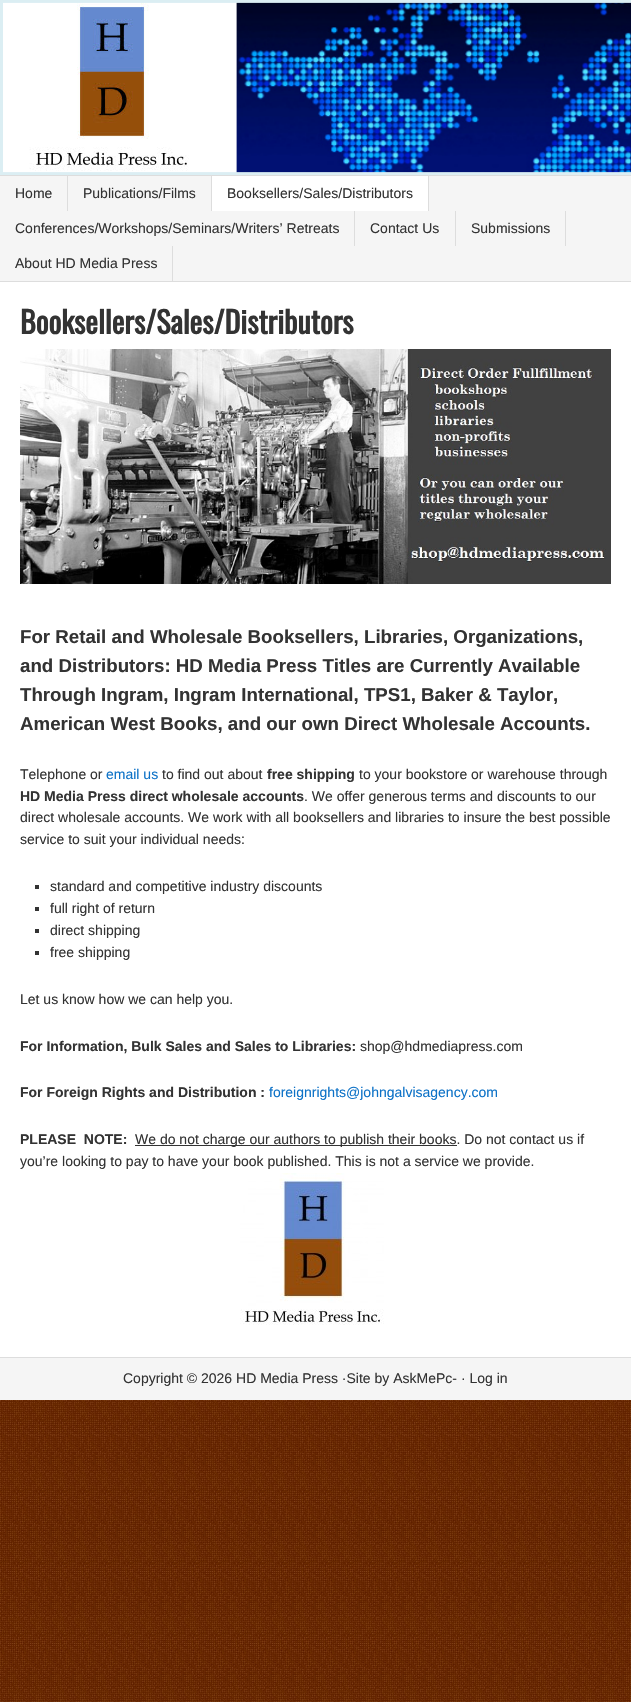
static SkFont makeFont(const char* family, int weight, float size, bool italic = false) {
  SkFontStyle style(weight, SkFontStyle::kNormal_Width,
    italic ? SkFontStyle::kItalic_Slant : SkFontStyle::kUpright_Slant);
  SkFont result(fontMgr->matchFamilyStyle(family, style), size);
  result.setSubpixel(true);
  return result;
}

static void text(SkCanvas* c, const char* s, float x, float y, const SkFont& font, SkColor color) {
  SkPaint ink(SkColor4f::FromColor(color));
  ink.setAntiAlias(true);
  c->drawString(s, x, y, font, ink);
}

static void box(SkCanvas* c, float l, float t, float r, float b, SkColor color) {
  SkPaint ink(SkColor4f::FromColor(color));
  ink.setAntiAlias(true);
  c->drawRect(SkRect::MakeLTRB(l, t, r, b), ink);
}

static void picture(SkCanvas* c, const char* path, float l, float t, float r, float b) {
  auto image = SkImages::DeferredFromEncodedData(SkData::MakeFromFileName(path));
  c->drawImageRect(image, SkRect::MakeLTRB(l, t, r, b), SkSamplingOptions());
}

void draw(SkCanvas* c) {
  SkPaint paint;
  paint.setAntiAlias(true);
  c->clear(0xffffffff);
  picture(c, "img_01.png", 0, 1400, 631, 1702);
  picture(c, "img_02.png", 0, 0, 631, 175);
  box(c, 0, 176, 631, 281, 0xfff5f5f5);
  box(c, 0, 175, 631, 176, 0xffdddddd);
  box(c, 0, 281, 631, 282, 0xffdddddd);
  box(c, 67, 176, 68, 211, 0xffdddddd);
  SkFont face1 = makeFont("Liberation Sans", 400, 14);
  text(c, "Home", 15, 198, face1, 0xff333333);
  box(c, 211, 176, 212, 211, 0xffdddddd);
  text(c, "Publications/Films", 83, 198, face1, 0xff333333);
  box(c, 212, 176, 428, 211, 0xffffffff);
  box(c, 428, 176, 429, 211, 0xffdddddd);
  text(c, "Booksellers/Sales/Distributors", 227, 198, face1, 0xff333333);
  box(c, 354, 211, 355, 246, 0xffdddddd);
  text(c, "Conferences/Workshops/Seminars/Writers’ Retreats", 15, 233, face1, 0xff333333);
  box(c, 455, 211, 456, 246, 0xffdddddd);
  text(c, "Contact Us", 370, 233, face1, 0xff333333);
  box(c, 565, 211, 566, 246, 0xffdddddd);
  text(c, "Submissions", 471, 233, face1, 0xff333333);
  box(c, 172, 246, 173, 281, 0xffdddddd);
  text(c, "About HD Media Press", 15, 268, face1, 0xff333333);
  SkFont face2 = makeFont("Oswald", 700, 30);
  text(c, "Booksellers/Sales/Distributors", 20, 334, face2, 0xff333333);
  picture(c, "img_03.png", 20, 349, 611, 584);
  SkFont face3 = makeFont("Liberation Sans", 700, 18.7f);
  text(c, "For Retail and Wholesale Booksellers, Libraries, Organizations,", 20, 643, face3, 0xff333333);
  text(c, "and Distributors: HD Media Press Titles are Currently Available", 20, 672, face3, 0xff333333);
  text(c, "Through Ingram, Ingram International, TPS1, Baker & Taylor,", 20, 701, face3, 0xff333333);
  text(c, "American West Books, and our own Direct Wholesale Accounts.", 20, 730, face3, 0xff333333);
  text(c, "Telephone or", 20, 779, face1, 0xff333333);
  text(c, "email us", 106, 779, face1, 0xff0d72c7);
  text(c, "to find out about", 162, 779, face1, 0xff333333);
  SkFont face4 = makeFont("Liberation Sans", 700, 14);
  text(c, "free shipping", 267, 779, face4, 0xff333333);
  text(c, "to your bookstore or warehouse through", 359, 779, face1, 0xff333333);
  text(c, "HD Media Press direct wholesale accounts", 20, 801, face4, 0xff333333);
  text(c, ". We offer generous terms and discounts to our", 304, 801, face1, 0xff333333);
  text(c, "direct wholesale accounts. We work with all booksellers and libraries to insure the best possible", 20, 822, face1, 0xff333333);
  text(c, "service to suit your individual needs:", 20, 844, face1, 0xff333333);
  box(c, 35, 885, 39, 889, 0xff333333);
  text(c, "standard and competitive industry discounts", 50, 891, face1, 0xff333333);
  box(c, 35, 907, 39, 911, 0xff333333);
  text(c, "full right of return", 50, 913, face1, 0xff333333);
  box(c, 35, 929, 39, 933, 0xff333333);
  text(c, "direct shipping", 50, 935, face1, 0xff333333);
  box(c, 35, 951, 39, 955, 0xff333333);
  text(c, "free shipping", 50, 957, face1, 0xff333333);
  text(c, "Let us know how we can help you.", 20, 1004, face1, 0xff333333);
  text(c, "For Information, Bulk Sales and Sales to Libraries:", 20, 1051, face4, 0xff333333);
  text(c, "shop@hdmediapress.com", 360, 1051, face1, 0xff333333);
  text(c, "For Foreign Rights and Distribution :", 20, 1097, face4, 0xff333333);
  text(c, "foreignrights@johngalvisagency.com", 269, 1097, face1, 0xff0d72c7);
  text(c, "PLEASE  NOTE:", 20, 1144, face4, 0xff333333);
  box(c, 135, 1145, 457, 1146, 0xff333333);
  text(c, "We do not charge our authors to publish their books. Do not contact us if", 135, 1144, face1, 0xff333333);
  text(c, "you’re looking to pay to have your book published. This is not a service we provide.", 20, 1166, face1, 0xff333333);
  picture(c, "img_04.png", 240, 1173, 384, 1325);
  box(c, 0, 1358, 631, 1400, 0xfff5f5f5);
  box(c, 0, 1357, 631, 1358, 0xffdddddd);
  text(c, "Copyright © 2026 HD Media Press ·Site by AskMePc- · Log in", 123, 1383, face1, 0xff333333);
}
